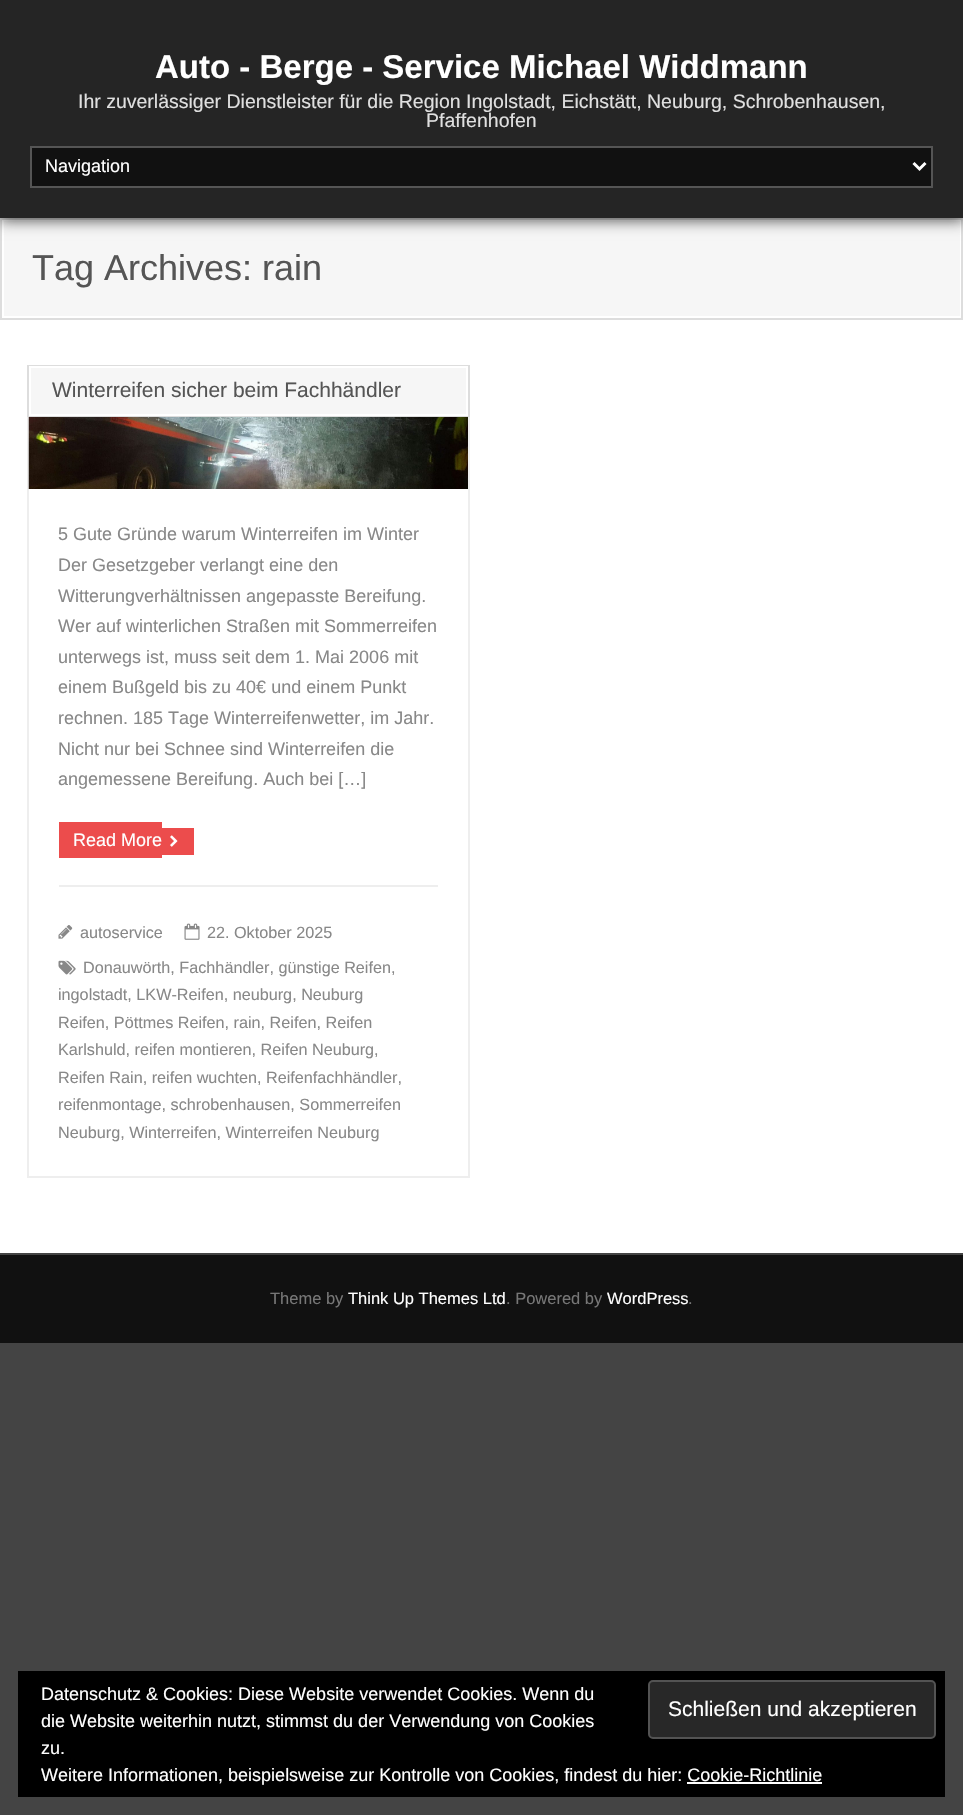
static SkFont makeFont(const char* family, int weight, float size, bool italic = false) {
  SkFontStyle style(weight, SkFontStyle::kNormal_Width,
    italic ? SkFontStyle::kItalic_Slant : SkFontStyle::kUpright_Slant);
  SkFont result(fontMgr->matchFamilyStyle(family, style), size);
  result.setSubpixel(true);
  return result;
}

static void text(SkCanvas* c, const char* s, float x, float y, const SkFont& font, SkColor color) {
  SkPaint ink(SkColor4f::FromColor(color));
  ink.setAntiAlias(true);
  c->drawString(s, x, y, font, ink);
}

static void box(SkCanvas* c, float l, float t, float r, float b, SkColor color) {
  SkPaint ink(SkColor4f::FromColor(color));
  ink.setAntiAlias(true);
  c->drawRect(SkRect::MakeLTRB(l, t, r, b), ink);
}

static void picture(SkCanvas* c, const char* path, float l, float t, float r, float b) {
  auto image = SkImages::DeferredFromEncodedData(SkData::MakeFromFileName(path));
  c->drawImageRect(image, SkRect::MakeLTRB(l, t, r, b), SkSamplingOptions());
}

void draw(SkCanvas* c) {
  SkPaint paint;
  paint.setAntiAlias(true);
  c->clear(0xff444444);
  box(c, 0, 320, 963, 1253, 0xffffffff);
  paint.setColor(0xfff6f6f6);
  c->drawRect(SkRect::MakeLTRB(3, 220, 961, 317), paint);
  paint.setStyle(SkPaint::kStroke_Style);
  paint.setStrokeWidth(2);
  paint.setColor(0xffffffff);
  c->drawRect(SkRect::MakeLTRB(3, 220, 961, 317), paint);
  paint.setColor(0xffdddddd);
  c->drawRect(SkRect::MakeLTRB(1, 219, 962, 319), paint);
  paint.setStyle(SkPaint::kFill_Style);
  paint.setColor(0xff333333);
  paint.setMaskFilter(SkMaskFilter::MakeBlur(kNormal_SkBlurStyle, 7.5f));
  c->drawRect(SkRect::MakeLTRB(-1, -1, 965, 219), paint);
  paint.setMaskFilter(nullptr);
  box(c, 0, 0, 963, 218, 0xff252525);
  SkFont face1 = makeFont("Liberation Sans", 700, 33);
  text(c, "Auto - Berge - Service Michael Widdmann", 155, 78, face1, 0xffffffff);
  SkFont face2 = makeFont("Liberation Sans", 400, 19.5f);
  text(c, "Ihr zuverlässiger Dienstleister für die Region Ingolstadt, Eichstätt, Neuburg, Schrobenhausen,", 78, 108, face2, 0xffe0e0e0);
  text(c, "Pfaffenhofen", 426, 127, face2, 0xffe0e0e0);
  paint.setColor(0xff111111);
  c->drawRect(SkRect::MakeLTRB(31, 147, 932, 187), paint);
  paint.setStyle(SkPaint::kStroke_Style);
  paint.setColor(0xff555555);
  c->drawRect(SkRect::MakeLTRB(31, 147, 932, 187), paint);
  paint.setStrokeWidth(3);
  paint.setColor(0xffffffff);
  c->drawPath(SkPathBuilder().moveTo(913.5f, 163).lineTo(919.5f, 169).lineTo(925.5f, 163).detach(), paint);
  SkFont face3 = makeFont("Liberation Sans", 400, 18);
  text(c, "Navigation", 45, 172, face3, 0xffffffff);
  SkFont face4 = makeFont("Liberation Sans", 400, 36);
  text(c, "Tag Archives: rain", 32, 280, face4, 0xff555555);
  paint.setStrokeWidth(2);
  paint.setColor(0xffeeeeee);
  c->drawRect(SkRect::MakeLTRB(28, 366, 469, 1177), paint);
  paint.setColor(0xffdddddd);
  c->drawRect(SkRect::MakeLTRB(28, 366, 469, 416), paint);
  paint.setStyle(SkPaint::kFill_Style);
  paint.setColor(0xfff6f6f6);
  c->drawRect(SkRect::MakeLTRB(30, 367, 467, 415), paint);
  paint.setStyle(SkPaint::kStroke_Style);
  paint.setColor(0xffffffff);
  c->drawRect(SkRect::MakeLTRB(30, 367, 467, 415), paint);
  SkFont face5 = makeFont("Liberation Sans", 400, 21);
  text(c, "Winterreifen sicher beim Fachhändler", 52, 397, face5, 0xff555555);
  picture(c, "img_01.png", 28, 417, 468, 489);
  text(c, "5 Gute Gründe warum Winterreifen im Winter", 58, 540, face3, 0xff888888);
  text(c, "Der Gesetzgeber verlangt eine den", 58, 571, face3, 0xff888888);
  text(c, "Witterungverhältnissen angepasste Bereifung.", 58, 602, face3, 0xff888888);
  text(c, "Wer auf winterlichen Straßen mit Sommerreifen", 58, 632, face3, 0xff888888);
  text(c, "unterwegs ist, muss seit dem 1. Mai 2006 mit", 58, 663, face3, 0xff888888);
  text(c, "einem Bußgeld bis zu 40€ und einem Punkt", 58, 693, face3, 0xff888888);
  text(c, "rechnen. 185 Tage Winterreifenwetter, im Jahr.", 58, 724, face3, 0xff888888);
  text(c, "Nicht nur bei Schnee sind Winterreifen die", 58, 755, face3, 0xff888888);
  text(c, "angemessene Bereifung. Auch bei […]", 58, 785, face3, 0xff888888);
  box(c, 59, 822, 162, 858, 0xffec4c4c);
  text(c, "Read More", 73, 846, face3, 0xffffffff);
  box(c, 162, 828, 194, 855, 0xffec4c4c);
  picture(c, "img_02.png", 170, 835, 178, 847);
  box(c, 59, 885, 438, 887, 0xffeeeeee);
  picture(c, "img_03.png", 58, 925, 73, 939);
  SkFont face6 = makeFont("Liberation Sans", 400, 16.2f);
  text(c, "autoservice", 80, 938, face6, 0xff888888);
  picture(c, "img_04.png", 184, 923, 200, 940);
  text(c, "22. Oktober 2025", 207, 938, face6, 0xff888888);
  picture(c, "img_05.png", 58, 960, 76, 975);
  text(c, "Donauwörth, Fachhändler, günstige Reifen,", 83, 973, face6, 0xff888888);
  text(c, "ingolstadt, LKW-Reifen, neuburg, Neuburg", 58, 1000, face6, 0xff888888);
  text(c, "Reifen, Pöttmes Reifen, rain, Reifen, Reifen", 58, 1028, face6, 0xff888888);
  text(c, "Karlshuld, reifen montieren, Reifen Neuburg,", 58, 1055, face6, 0xff888888);
  text(c, "Reifen Rain, reifen wuchten, Reifenfachhändler,", 58, 1083, face6, 0xff888888);
  text(c, "reifenmontage, schrobenhausen, Sommerreifen", 58, 1110, face6, 0xff888888);
  text(c, "Neuburg, Winterreifen, Winterreifen Neuburg", 58, 1138, face6, 0xff888888);
  box(c, 0, 1255, 963, 1343, 0xff111111);
  SkFont face7 = makeFont("Liberation Sans", 400, 16.5f);
  text(c, "Theme by", 270, 1304, face7, 0xff777777);
  text(c, "Think Up Themes Ltd", 348, 1304, face7, 0xffffffff);
  text(c, ". Powered by", 506, 1304, face7, 0xff777777);
  text(c, "WordPress", 607, 1304, face7, 0xffffffff);
  text(c, ".", 688, 1304, face7, 0xff777777);
  box(c, 18, 1671, 945, 1797, 0xff000000);
  text(c, "Datenschutz & Cookies: Diese Website verwendet Cookies. Wenn du", 41, 1700, face3, 0xffffffff);
  text(c, "die Website weiterhin nutzt, stimmst du der Verwendung von Cookies", 41, 1727, face3, 0xffffffff);
  paint.setStyle(SkPaint::kFill_Style);
  paint.setColor(0xff282828);
  c->drawRoundRect(SkRect::MakeLTRB(649, 1681, 935, 1738), 4, 4, paint);
  paint.setStyle(SkPaint::kStroke_Style);
  paint.setColor(0xff535353);
  c->drawRoundRect(SkRect::MakeLTRB(649, 1681, 935, 1738), 4, 4, paint);
  text(c, "Schließen und akzeptieren", 668, 1716, face5, 0xffffffff);
  text(c, "zu.", 41, 1754, face3, 0xffffffff);
  text(c, "Weitere Informationen, beispielsweise zur Kontrolle von Cookies, findest du hier: Cookie-Richtlinie", 41, 1781, face3, 0xffffffff);
  box(c, 687, 1782, 822, 1784, 0xffffffff);
}
